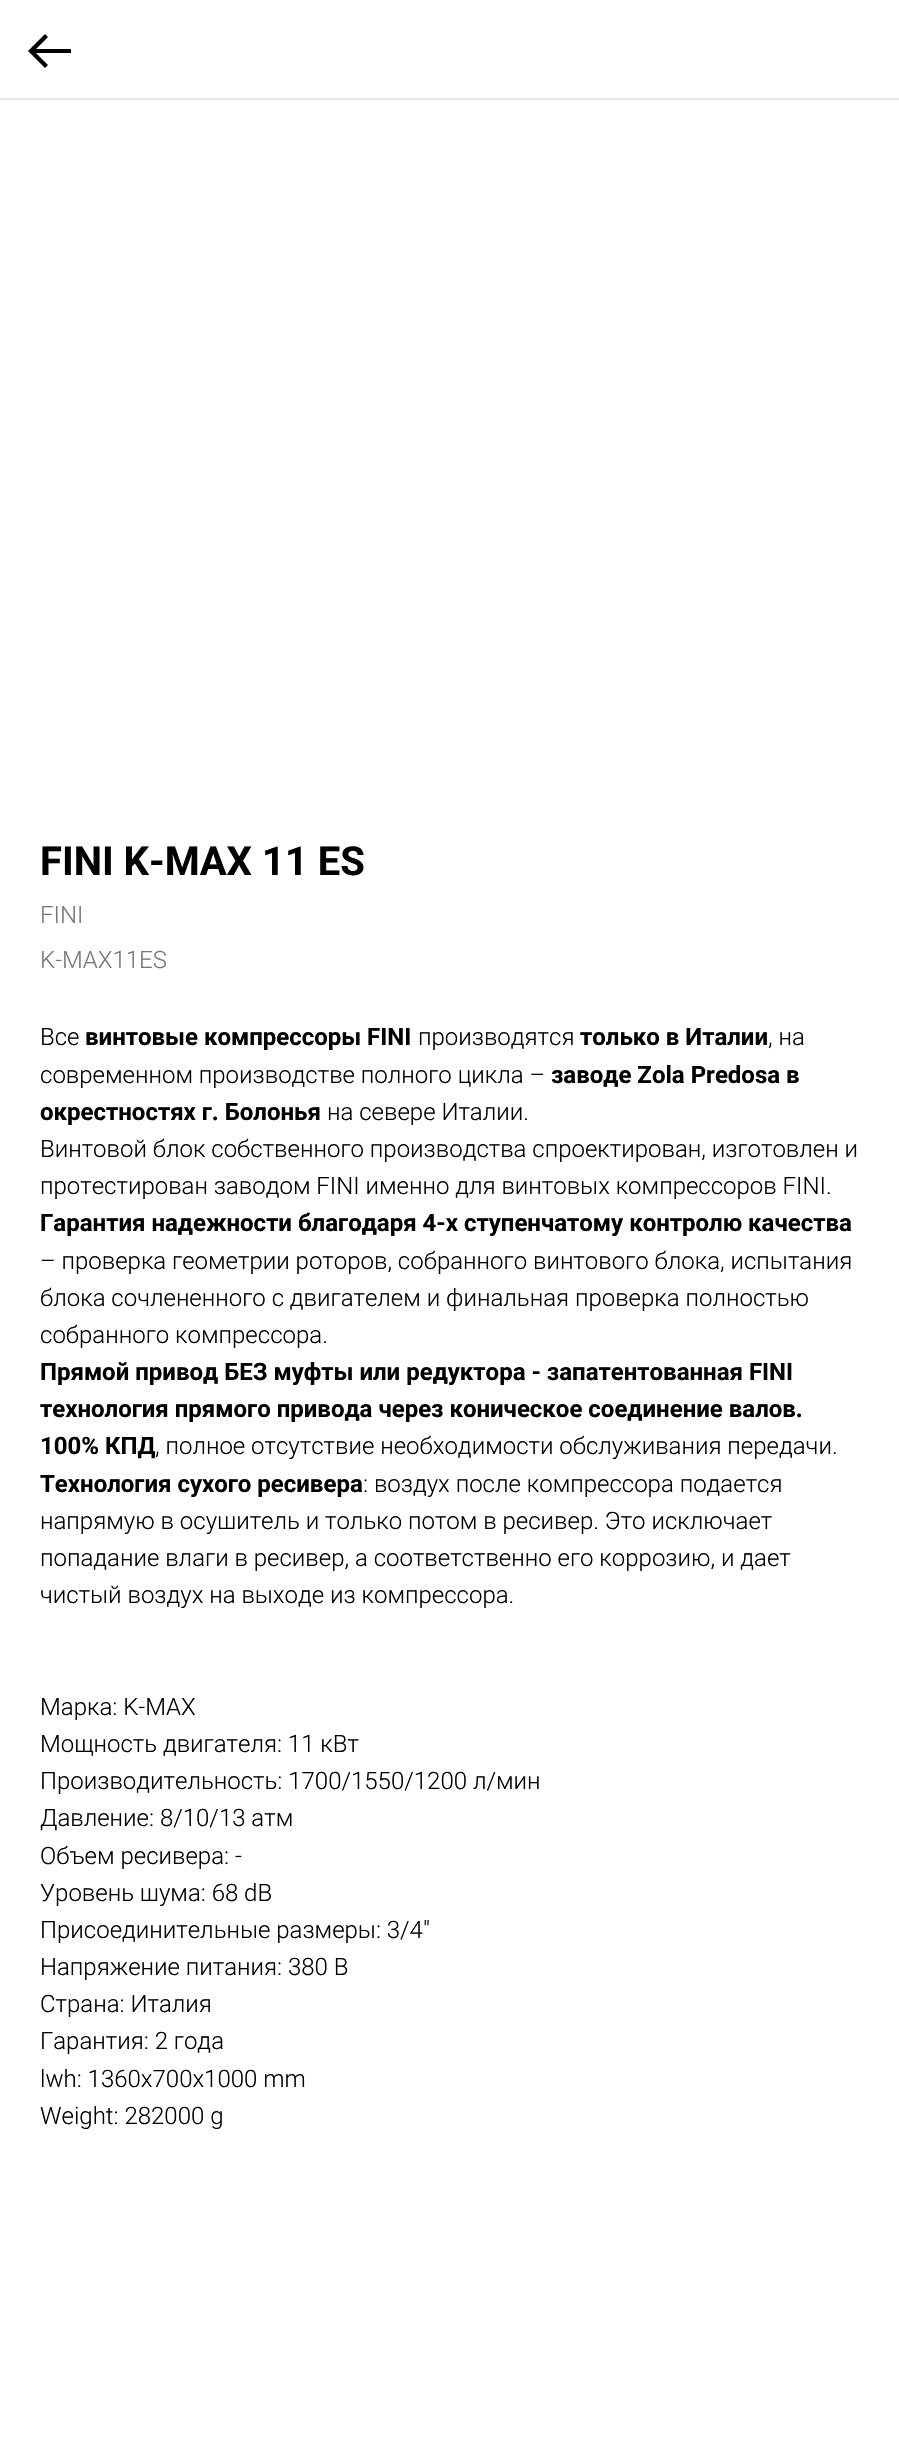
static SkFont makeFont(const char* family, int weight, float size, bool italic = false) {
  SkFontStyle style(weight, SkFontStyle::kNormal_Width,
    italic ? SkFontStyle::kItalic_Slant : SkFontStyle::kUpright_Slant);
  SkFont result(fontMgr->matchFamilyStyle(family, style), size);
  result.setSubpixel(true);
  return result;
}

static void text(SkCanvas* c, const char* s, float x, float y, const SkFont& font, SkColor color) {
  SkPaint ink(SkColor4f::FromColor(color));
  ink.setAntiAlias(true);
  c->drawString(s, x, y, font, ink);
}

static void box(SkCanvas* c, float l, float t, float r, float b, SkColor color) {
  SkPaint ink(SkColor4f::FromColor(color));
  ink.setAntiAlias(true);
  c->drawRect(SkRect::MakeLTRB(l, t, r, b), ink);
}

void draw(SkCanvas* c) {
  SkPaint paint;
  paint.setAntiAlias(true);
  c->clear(0xffffffff);
  box(c, 0, 98, 899, 100, 0xffe6e6e6);
  paint.setColor(0xff000000);
  c->drawPath(SkPathBuilder().moveTo(45, 34).lineTo(48, 37).lineTo(36, 49).lineTo(71, 49).lineTo(71, 53).lineTo(36, 53).lineTo(48, 65).lineTo(45, 68).lineTo(28, 51).close().detach(), paint);
  SkFont face1 = makeFont("Roboto", 700, 40);
  text(c, "FINI K-MAX 11 ES", 40, 875, face1, 0xff000000);
  SkFont face2 = makeFont("Roboto", 300, 24);
  text(c, "FINI", 40, 923, face2, 0xff777777);
  text(c, "K-MAX11ES", 40, 968, face2, 0xff777777);
  text(c, "Все", 40, 1045, face2, 0xff000000);
  SkFont face3 = makeFont("Roboto", 700, 24);
  text(c, "винтовые компрессоры FINI", 85, 1045, face3, 0xff000000);
  text(c, "производятся", 418, 1045, face2, 0xff000000);
  text(c, "только в Италии", 580, 1045, face3, 0xff000000);
  text(c, ", на", 768, 1045, face2, 0xff000000);
  text(c, "современном производстве полного цикла –", 40, 1083, face2, 0xff000000);
  text(c, "заводе Zola Predosa в", 551, 1083, face3, 0xff000000);
  text(c, "окрестностях г. Болонья", 40, 1120, face3, 0xff000000);
  text(c, "на севере Италии.", 327, 1120, face2, 0xff000000);
  text(c, "Винтовой блок собственного производства спроектирован, изготовлен и", 40, 1157, face2, 0xff000000);
  text(c, "протестирован заводом FINI именно для винтовых компрессоров FINI.", 40, 1194, face2, 0xff000000);
  text(c, "Гарантия надежности благодаря 4-х ступенчатому контролю качества", 40, 1231, face3, 0xff000000);
  text(c, "– проверка геометрии роторов, собранного винтового блока, испытания", 40, 1269, face2, 0xff000000);
  text(c, "блока сочлененного с двигателем и финальная проверка полностью", 40, 1306, face2, 0xff000000);
  text(c, "собранного компрессора.", 40, 1343, face2, 0xff000000);
  text(c, "Прямой привод БЕЗ муфты или редуктора - запатентованная FINI", 40, 1380, face3, 0xff000000);
  text(c, "технология прямого привода через коническое соединение валов.", 40, 1417, face3, 0xff000000);
  text(c, "100% КПД", 40, 1454, face3, 0xff000000);
  text(c, ", полное отсутствие необходимости обслуживания передачи.", 155, 1454, face2, 0xff000000);
  text(c, "Технология сухого ресивера", 40, 1492, face3, 0xff000000);
  text(c, ": воздух после компрессора подается", 363, 1492, face2, 0xff000000);
  text(c, "напрямую в осушитель и только потом в ресивер. Это исключает", 40, 1529, face2, 0xff000000);
  text(c, "попадание влаги в ресивер, а соответственно его коррозию, и дает", 40, 1566, face2, 0xff000000);
  text(c, "чистый воздух на выходе из компрессора.", 40, 1603, face2, 0xff000000);
  text(c, "Марка: K-MAX", 40, 1715, face2, 0xff000000);
  text(c, "Мощность двигателя: 11 кВт", 40, 1752, face2, 0xff000000);
  text(c, "Производительность: 1700/1550/1200 л/мин", 40, 1789, face2, 0xff000000);
  text(c, "Давление: 8/10/13 атм", 40, 1826, face2, 0xff000000);
  text(c, "Объем ресивера: -", 40, 1864, face2, 0xff000000);
  text(c, "Уровень шума: 68 dB", 40, 1901, face2, 0xff000000);
  text(c, "Присоединительные размеры: 3/4\"", 40, 1938, face2, 0xff000000);
  text(c, "Напряжение питания: 380 В", 40, 1975, face2, 0xff000000);
  text(c, "Страна: Италия", 40, 2012, face2, 0xff000000);
  text(c, "Гарантия: 2 года", 40, 2049, face2, 0xff000000);
  text(c, "lwh: 1360x700x1000 mm", 40, 2087, face2, 0xff000000);
  text(c, "Weight: 282000 g", 40, 2124, face2, 0xff000000);
}
